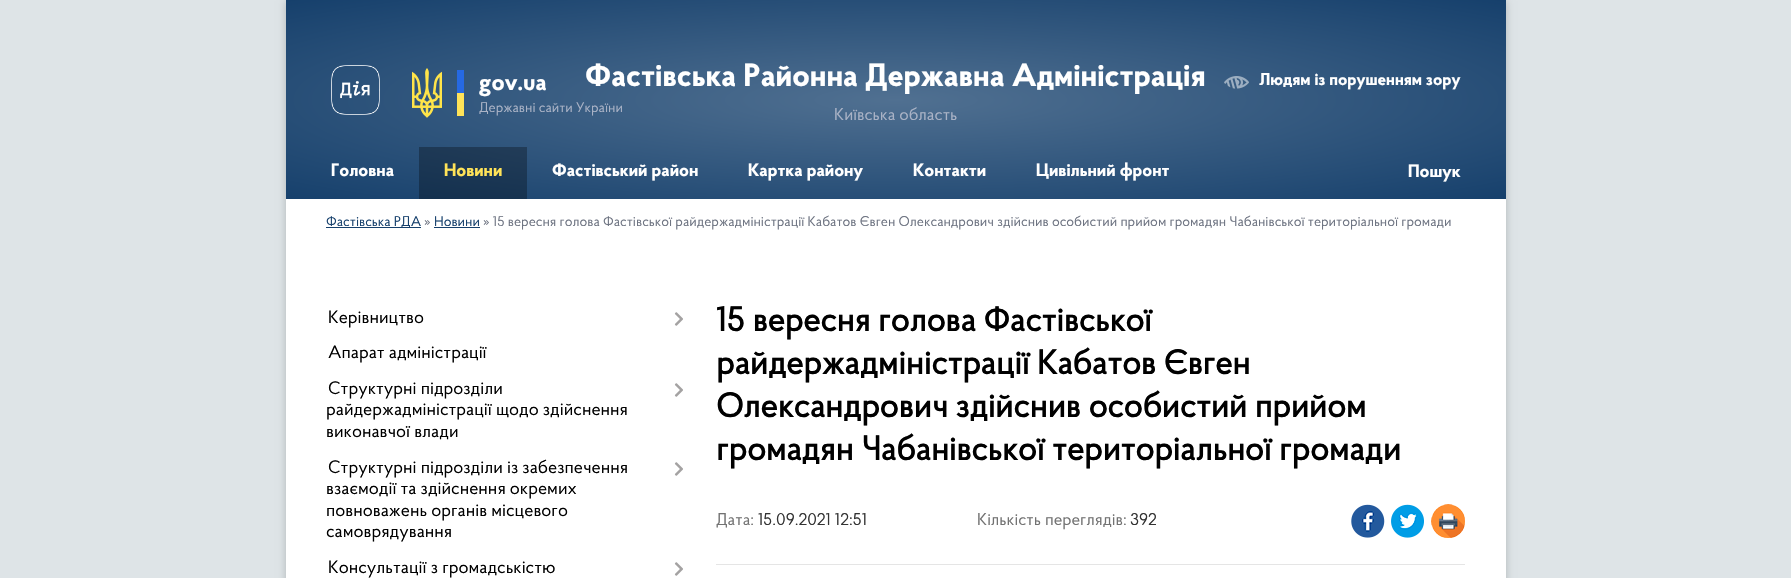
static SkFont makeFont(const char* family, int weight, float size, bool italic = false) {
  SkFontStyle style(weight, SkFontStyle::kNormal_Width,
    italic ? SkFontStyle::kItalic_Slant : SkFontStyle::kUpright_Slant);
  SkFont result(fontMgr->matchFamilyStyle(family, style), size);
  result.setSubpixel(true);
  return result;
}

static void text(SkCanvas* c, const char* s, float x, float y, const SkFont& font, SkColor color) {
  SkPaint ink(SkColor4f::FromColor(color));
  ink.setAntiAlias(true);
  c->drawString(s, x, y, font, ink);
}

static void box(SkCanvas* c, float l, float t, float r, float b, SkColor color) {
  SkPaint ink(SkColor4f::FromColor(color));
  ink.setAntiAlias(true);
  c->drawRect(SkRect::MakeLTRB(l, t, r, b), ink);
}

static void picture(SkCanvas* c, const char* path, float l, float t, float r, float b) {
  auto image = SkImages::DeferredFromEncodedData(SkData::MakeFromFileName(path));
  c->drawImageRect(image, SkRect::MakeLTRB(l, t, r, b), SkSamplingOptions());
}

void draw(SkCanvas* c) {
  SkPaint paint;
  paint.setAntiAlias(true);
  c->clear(0xffdee4e7);
  paint.setColor(0x33000000);
  paint.setMaskFilter(SkMaskFilter::MakeBlur(kNormal_SkBlurStyle, 4));
  c->drawRect(SkRect::MakeLTRB(286, 1, 1506, 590), paint);
  paint.setMaskFilter(nullptr);
  box(c, 286, 199, 1506, 578, 0xffffffff);
  {
    const SkColor colors[] = {0xff507091, 0xff16406c};
    const float stops[] = {0, 1};
    SkMatrix m = SkMatrix::Translate(896, 100).preScale(863, 141);
    paint.setShader(SkGradientShader::MakeRadial({0, 0}, 1, colors, stops, 2, SkTileMode::kClamp, 0, &m));
    paint.setAlpha(255);
  }
  c->drawRect(SkRect::MakeLTRB(286, 0, 1506, 199), paint);
  {
    const SkColor colors[] = {0xff384e66, 0xff0f2d4c};
    const float stops[] = {0, 1};
    SkMatrix m = SkMatrix::Translate(896, 100).preScale(863, 141);
    paint.setShader(SkGradientShader::MakeRadial({0, 0}, 1, colors, stops, 2, SkTileMode::kClamp, 0, &m));
    paint.setAlpha(255);
  }
  c->drawRect(SkRect::MakeLTRB(419, 147, 527, 199), paint);
  picture(c, "img_01.png", 331, 65, 380, 115);
  picture(c, "img_02.png", 412, 68, 442, 118);
  box(c, 457, 70, 464, 93, 0xff2669e3);
  box(c, 457, 93, 464, 116, 0xffffe358);
  SkFont face1 = makeFont("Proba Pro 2", 700, 24);
  text(c, "gov.ua", 479, 90, face1, 0xffffffff);
  SkFont face2 = makeFont("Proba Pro", 400, 14);
  text(c, "Державні сайти України", 479, 112, face2, 0xffaab3c6);
  SkFont face3 = makeFont("Proba Pro 2", 700, 32);
  text(c, "Фастівська Районна Державна Адміністрація", 585, 86, face3, 0xffffffff);
  SkFont face4 = makeFont("Proba Pro", 400, 17);
  text(c, "Київська область", 834, 120, face4, 0xffaab3c6);
  picture(c, "img_03.png", 1224, 76, 1249, 89);
  SkFont face5 = makeFont("Proba Pro 2", 700, 17);
  text(c, "Людям із порушенням зору", 1259, 85, face5, 0xffffffff);
  SkFont face6 = makeFont("Proba Pro 2", 700, 18);
  text(c, "Головна", 331, 176, face6, 0xffffffff);
  text(c, "Новини", 444, 176, face6, 0xffffe358);
  text(c, "Фастівський район", 552, 176, face6, 0xffffffff);
  text(c, "Картка району", 748, 176, face6, 0xffffffff);
  text(c, "Контакти", 913, 176, face6, 0xffffffff);
  text(c, "Цивільний фронт", 1036, 176, face6, 0xffffffff);
  text(c, "Пошук", 1408, 177, face6, 0xffffffff);
  box(c, 326, 227, 421, 228, 0xff16406c);
  text(c, "Фастівська РДА", 326, 226, face2, 0xff16406c);
  text(c, "»", 424, 226, face2, 0xff6d7381);
  text(c, "Новини", 434, 226, face2, 0xff16406c);
  box(c, 434, 227, 480, 228, 0xff16406c);
  text(c, "» 15 вересня голова Фастівської райдержадміністрації Кабатов Євген Олександрович здійснив особистий прийом громадян Чабанівської територіальної громади", 483, 226, face2, 0xff6d7381);
  SkFont face7 = makeFont("Proba Pro", 400, 18);
  text(c, "Керівництво", 328, 323, face7, 0xff000000);
  picture(c, "img_04.png", 674, 312, 683, 326);
  text(c, "Апарат адміністрації", 328, 358, face7, 0xff000000);
  text(c, "Структурні підрозділи", 328, 394, face7, 0xff000000);
  text(c, "райдержадміністрації щодо здійснення", 326, 415, face7, 0xff000000);
  text(c, "виконавчої влади", 326, 437, face7, 0xff000000);
  picture(c, "img_04.png", 674, 383, 683, 397);
  text(c, "Структурні підрозділи із забезпечення", 328, 473, face7, 0xff000000);
  text(c, "взаємодії та здійснення окремих", 326, 494, face7, 0xff000000);
  text(c, "повноважень органів місцевого", 326, 516, face7, 0xff000000);
  text(c, "самоврядування", 326, 537, face7, 0xff000000);
  picture(c, "img_04.png", 674, 462, 683, 476);
  text(c, "Консультації з громадськістю", 328, 573, face7, 0xff000000);
  picture(c, "img_04.png", 674, 562, 683, 576);
  SkFont face8 = makeFont("Proba Pro", 700, 34);
  text(c, "15 вересня голова Фастівської", 716, 331, face8, 0xff000000);
  text(c, "райдержадміністрації Кабатов Євген", 716, 374, face8, 0xff000000);
  text(c, "Олександрович здійснив особистий прийом", 716, 417, face8, 0xff000000);
  text(c, "громадян Чабанівської територіальної громади", 716, 460, face8, 0xff000000);
  text(c, "Дата:", 716, 525, face4, 0xff727272);
  text(c, "15.09.2021 12:51", 758, 525, face4, 0xff333333);
  text(c, "Кількість переглядів:", 977, 525, face4, 0xff727272);
  text(c, "392", 1130, 525, face4, 0xff333333);
  picture(c, "img_05.png", 1351, 504, 1385, 538);
  picture(c, "img_06.png", 1391, 504, 1424, 538);
  picture(c, "img_07.png", 1431, 504, 1465, 538);
  box(c, 716, 564, 1465, 565, 0xffe5e5e5);
}
